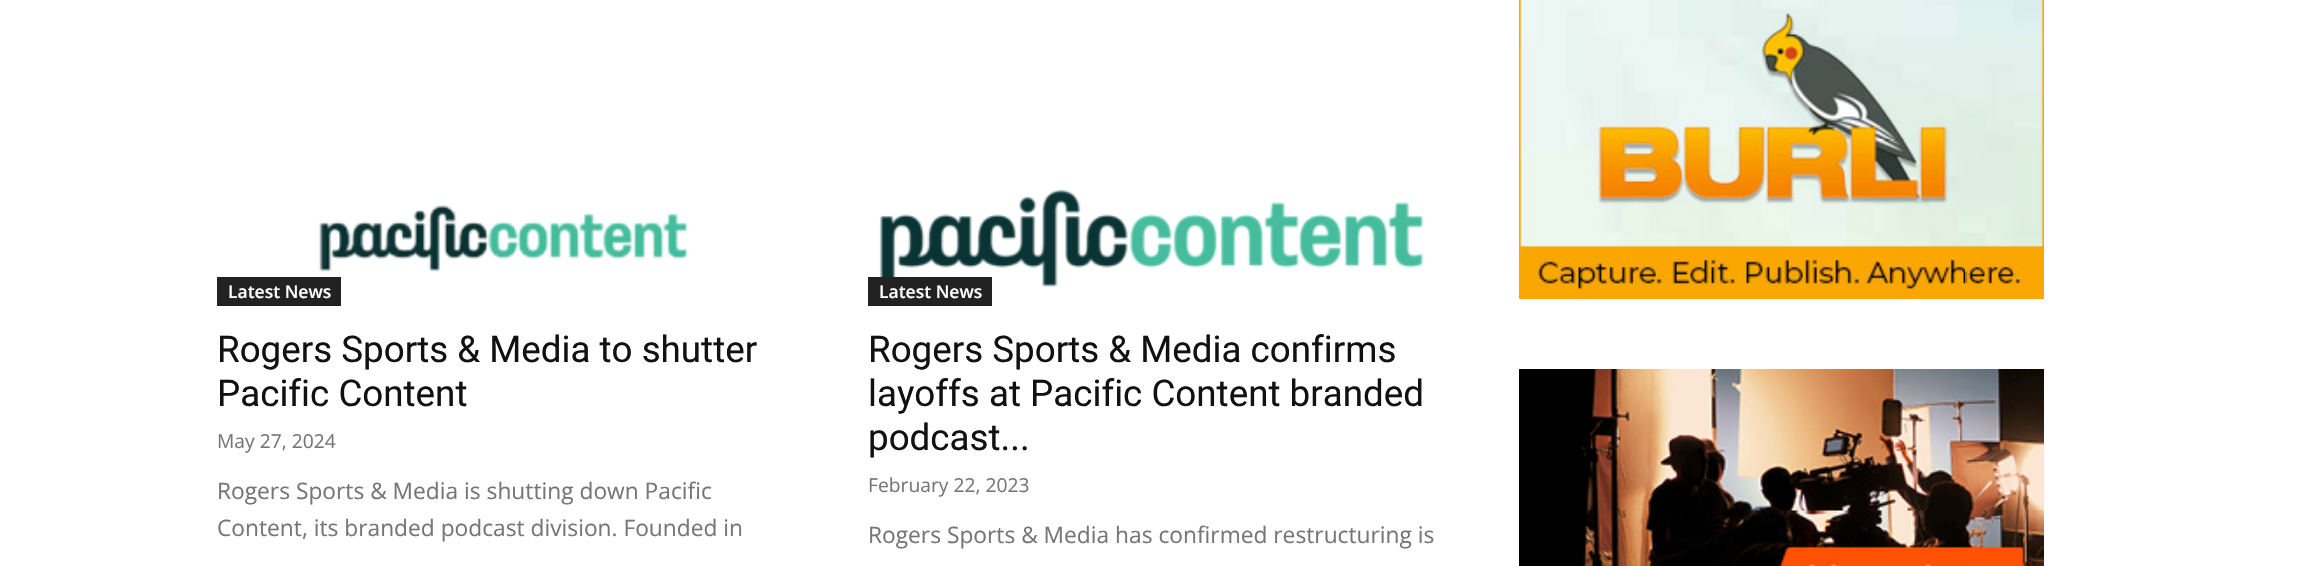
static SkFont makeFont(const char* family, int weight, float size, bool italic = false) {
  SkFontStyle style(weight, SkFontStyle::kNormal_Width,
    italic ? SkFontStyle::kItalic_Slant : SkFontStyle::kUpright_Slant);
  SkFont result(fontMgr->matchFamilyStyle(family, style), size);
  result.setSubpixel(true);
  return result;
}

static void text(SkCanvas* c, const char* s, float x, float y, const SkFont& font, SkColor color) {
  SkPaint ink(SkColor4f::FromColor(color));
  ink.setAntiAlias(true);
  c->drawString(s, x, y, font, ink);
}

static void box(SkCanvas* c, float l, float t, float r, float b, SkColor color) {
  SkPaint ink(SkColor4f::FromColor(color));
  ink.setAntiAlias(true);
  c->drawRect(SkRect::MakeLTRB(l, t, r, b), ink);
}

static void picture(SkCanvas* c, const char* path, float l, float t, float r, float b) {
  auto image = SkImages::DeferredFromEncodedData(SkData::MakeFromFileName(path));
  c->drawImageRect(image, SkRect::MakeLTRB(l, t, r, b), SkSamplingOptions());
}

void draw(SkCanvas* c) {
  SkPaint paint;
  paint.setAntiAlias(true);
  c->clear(0xffffffff);
  picture(c, "img_01.png", 318, 205, 688, 272);
  box(c, 217, 277, 341, 306, 0xff222222);
  SkFont face1 = makeFont("Open Sans", 600, 17.5f);
  text(c, "Latest News", 228, 298, face1, 0xffffffff);
  SkFont face2 = makeFont("Roboto", 400, 36.75f);
  text(c, "Rogers Sports & Media to shutter", 217, 362, face2, 0xff111111);
  text(c, "Pacific Content", 217, 406, face2, 0xff111111);
  SkFont face3 = makeFont("Open Sans", 400, 19.25f);
  text(c, "May 27, 2024", 217, 448, face3, 0xff767676);
  SkFont face4 = makeFont("Open Sans", 400, 22.75f);
  text(c, "Rogers Sports & Media is shutting down Pacific", 217, 499, face4, 0xff767676);
  text(c, "Content, its branded podcast division. Founded in", 217, 536, face4, 0xff767676);
  picture(c, "img_02.png", 879, 189, 1424, 287);
  box(c, 868, 277, 992, 306, 0xff222222);
  text(c, "Latest News", 879, 298, face1, 0xffffffff);
  text(c, "Rogers Sports & Media confirms", 868, 362, face2, 0xff111111);
  text(c, "layoffs at Pacific Content branded", 868, 406, face2, 0xff111111);
  text(c, "podcast...", 868, 450, face2, 0xff111111);
  text(c, "February 22, 2023", 868, 492, face3, 0xff767676);
  text(c, "Rogers Sports & Media has confirmed restructuring is", 868, 543, face4, 0xff767676);
  picture(c, "img_03.png", 1519, 0, 2044, 299);
  picture(c, "img_04.png", 1519, 369, 2044, 566);
}
